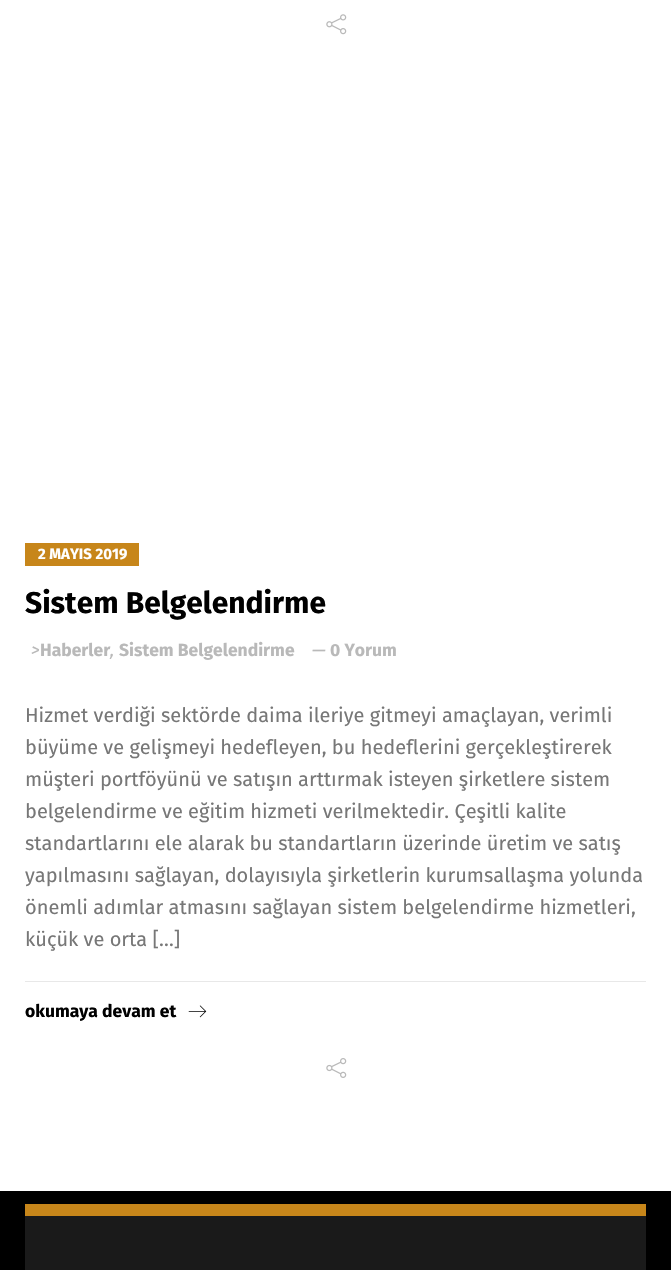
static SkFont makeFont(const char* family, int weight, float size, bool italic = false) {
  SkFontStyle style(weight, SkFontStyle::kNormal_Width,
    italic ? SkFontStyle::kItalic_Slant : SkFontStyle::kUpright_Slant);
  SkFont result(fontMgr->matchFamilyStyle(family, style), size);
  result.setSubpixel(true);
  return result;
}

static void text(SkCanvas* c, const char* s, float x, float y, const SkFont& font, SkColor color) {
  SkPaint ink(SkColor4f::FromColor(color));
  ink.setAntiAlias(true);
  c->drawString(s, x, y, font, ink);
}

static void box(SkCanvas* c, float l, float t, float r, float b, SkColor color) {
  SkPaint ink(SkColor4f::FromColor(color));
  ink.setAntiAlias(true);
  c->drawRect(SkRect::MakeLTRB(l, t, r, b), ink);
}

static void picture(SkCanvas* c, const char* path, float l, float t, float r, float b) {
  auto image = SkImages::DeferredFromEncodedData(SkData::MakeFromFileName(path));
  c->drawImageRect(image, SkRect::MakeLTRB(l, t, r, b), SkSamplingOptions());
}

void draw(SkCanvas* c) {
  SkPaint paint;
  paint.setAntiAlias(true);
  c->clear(0xffffffff);
  picture(c, "img_01.png", 326, 14, 347, 35);
  box(c, 25, 543, 139, 566, 0xffc7861a);
  SkFont face1 = makeFont("Fira Sans", 700, 15);
  text(c, "2 MAYIS 2019", 38, 559, face1, 0xffffffff);
  SkFont face2 = makeFont("Fira Sans", 700, 30);
  text(c, "Sistem Belgelendirme", 25, 613, face2, 0xff000000);
  SkFont face3 = makeFont("Fira Sans", 400, 17.5f, true);
  text(c, ">", 31, 656, face3, 0xffb9b9b9);
  SkFont face4 = makeFont("Fira Sans", 700, 17.5f);
  text(c, "Haberler", 40, 656, face4, 0xffb9b9b9);
  text(c, "Sistem Belgelendirme", 119, 656, face4, 0xffb9b9b9);
  text(c, ",", 110, 656, face3, 0xffb9b9b9);
  text(c, "—", 312, 656, face3, 0xffb9b9b9);
  text(c, "0 Yorum", 330, 656, face4, 0xffb9b9b9);
  SkFont face5 = makeFont("Fira Sans", 400, 20);
  text(c, "Hizmet verdiği sektörde daima ileriye gitmeyi amaçlayan, verimli", 25, 722, face5, 0xff777777);
  text(c, "büyüme ve gelişmeyi hedefleyen, bu hedeflerini gerçekleştirerek", 25, 754, face5, 0xff777777);
  text(c, "müşteri portföyünü ve satışın arttırmak isteyen şirketlere sistem", 25, 786, face5, 0xff777777);
  text(c, "belgelendirme ve eğitim hizmeti verilmektedir. Çeşitli kalite", 25, 818, face5, 0xff777777);
  text(c, "standartlarını ele alarak bu standartların üzerinde üretim ve satış", 25, 850, face5, 0xff777777);
  text(c, "yapılmasını sağlayan, dolayısıyla şirketlerin kurumsallaşma yolunda", 25, 882, face5, 0xff777777);
  text(c, "önemli adımlar atmasını sağlayan sistem belgelendirme hizmetleri,", 25, 914, face5, 0xff777777);
  text(c, "küçük ve orta […]", 25, 946, face5, 0xff777777);
  box(c, 25, 981, 646, 982, 0xffe8e8e8);
  text(c, "okumaya devam et", 25, 1017, face4, 0xff000000);
  picture(c, "img_02.png", 188, 1005, 207, 1018);
  picture(c, "img_03.png", 326, 1058, 347, 1078);
  box(c, 0, 1191, 671, 1270, 0xff000000);
  box(c, 25, 1216, 646, 1270, 0xff1a1a1a);
  box(c, 25, 1204, 646, 1216, 0xffc7861a);
}
